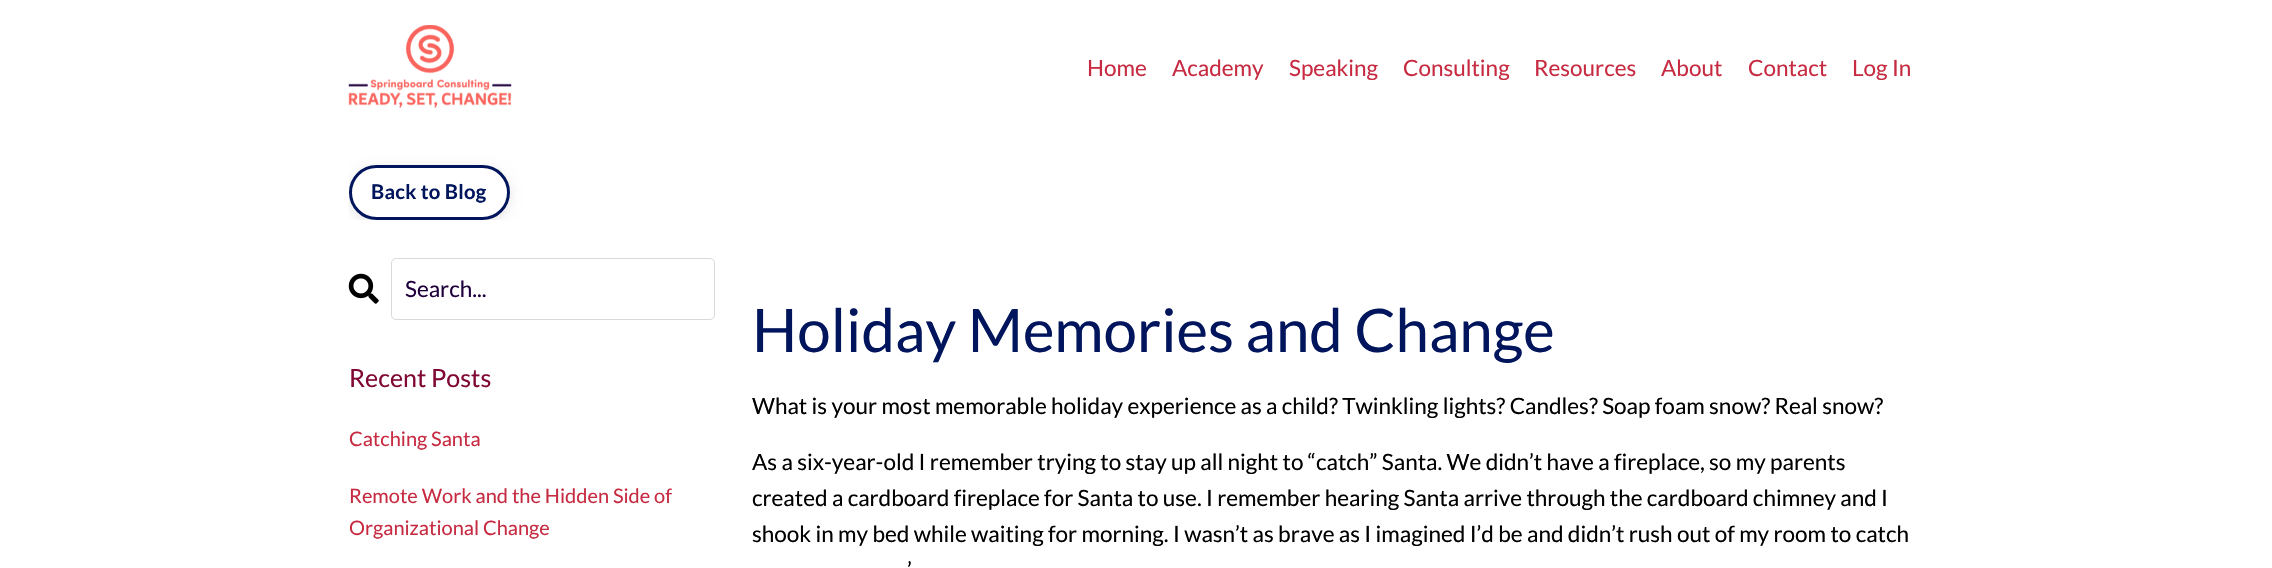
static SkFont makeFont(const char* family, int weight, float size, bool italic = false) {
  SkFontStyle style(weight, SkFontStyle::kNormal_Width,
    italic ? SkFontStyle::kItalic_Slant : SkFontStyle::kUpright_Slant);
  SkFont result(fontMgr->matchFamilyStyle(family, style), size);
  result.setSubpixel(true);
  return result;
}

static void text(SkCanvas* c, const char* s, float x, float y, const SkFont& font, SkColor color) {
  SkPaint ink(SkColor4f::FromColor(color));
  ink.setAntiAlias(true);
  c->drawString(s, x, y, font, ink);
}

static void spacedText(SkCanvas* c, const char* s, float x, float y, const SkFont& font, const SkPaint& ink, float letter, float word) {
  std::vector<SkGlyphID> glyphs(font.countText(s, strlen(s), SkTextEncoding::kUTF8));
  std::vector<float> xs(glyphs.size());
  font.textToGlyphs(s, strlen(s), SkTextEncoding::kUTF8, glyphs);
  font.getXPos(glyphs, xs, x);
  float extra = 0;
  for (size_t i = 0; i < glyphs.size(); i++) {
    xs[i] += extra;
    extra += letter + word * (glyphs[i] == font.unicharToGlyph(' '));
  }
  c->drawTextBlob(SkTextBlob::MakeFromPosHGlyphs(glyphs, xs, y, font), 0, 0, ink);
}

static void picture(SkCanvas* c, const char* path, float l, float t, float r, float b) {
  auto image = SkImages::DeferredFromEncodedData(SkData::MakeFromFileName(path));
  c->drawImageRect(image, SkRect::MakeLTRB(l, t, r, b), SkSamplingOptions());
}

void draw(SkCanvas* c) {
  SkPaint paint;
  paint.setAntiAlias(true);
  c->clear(0xffffffff);
  picture(c, "img_01.png", 348, 25, 512, 108);
  SkFont face1 = makeFont("Lato", 400, 22.5f);
  text(c, "Home", 1087, 76, face1, 0xffc72b41);
  text(c, "Academy", 1172, 76, face1, 0xffc72b41);
  text(c, "Speaking", 1289, 76, face1, 0xffc72b41);
  text(c, "Consulting", 1403, 76, face1, 0xffc72b41);
  text(c, "Resources", 1534, 76, face1, 0xffc72b41);
  text(c, "About", 1661, 76, face1, 0xffc72b41);
  text(c, "Contact", 1748, 76, face1, 0xffc72b41);
  text(c, "Log In", 1852, 76, face1, 0xffc72b41);
  c->save();
  c->clipPath(SkPathBuilder().moveTo(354, 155).lineTo(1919, 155).cubicTo(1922, 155, 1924, 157, 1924, 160).lineTo(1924, 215).cubicTo(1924, 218, 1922, 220, 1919, 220).lineTo(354, 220).cubicTo(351, 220, 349, 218, 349, 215).lineTo(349, 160).cubicTo(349, 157, 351, 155, 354, 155).close().detach(), true);
  c->clipPath(SkPathBuilder(SkPathFillType::kEvenOdd).moveTo(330, 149).lineTo(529, 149).lineTo(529, 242).lineTo(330, 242).close().moveTo(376.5f, 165).lineTo(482.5f, 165).cubicTo(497.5f, 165, 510, 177.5f, 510, 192.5f).cubicTo(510, 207.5f, 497.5f, 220, 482.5f, 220).lineTo(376.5f, 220).cubicTo(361.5f, 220, 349, 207.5f, 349, 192.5f).cubicTo(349, 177.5f, 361.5f, 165, 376.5f, 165).close().detach(), true);
  paint.setColor(0x1a000000);
  paint.setMaskFilter(SkMaskFilter::MakeBlur(kNormal_SkBlurStyle, 6));
  c->drawRoundRect(SkRect::MakeLTRB(349, 168, 510, 223), 27.5f, 27.5f, paint);
  paint.setMaskFilter(nullptr);
  c->restore();
  paint.setStyle(SkPaint::kStroke_Style);
  paint.setStrokeWidth(3);
  paint.setColor(0xff01155d);
  c->drawRoundRect(SkRect::MakeLTRB(350.5f, 166.5f, 508.5f, 218.5f), 26, 26, paint);
  SkFont face2 = makeFont("Lato", 700, 20.25f);
  paint.setStyle(SkPaint::kFill_Style);
  spacedText(c, "Back to Blog", 371, 199, face2, paint, 0.25f, 0);
  picture(c, "img_02.png", 348, 273, 379, 304);
  paint.setStyle(SkPaint::kStroke_Style);
  paint.setStrokeWidth(1);
  paint.setColor(0xffd9d9d9);
  c->drawRoundRect(SkRect::MakeLTRB(391.5f, 258.5f, 714.5f, 319.5f), 4.5f, 4.5f, paint);
  text(c, "Search...", 405, 297, face1, 0xff1f003d);
  SkFont face3 = makeFont("Lato", 400, 25);
  text(c, "Recent Posts", 349, 387, face3, 0xff800834);
  SkFont face4 = makeFont("Lato", 400, 20);
  text(c, "Catching Santa", 349, 446, face4, 0xffc72b41);
  text(c, "Remote Work and the Hidden Side of", 349, 503, face4, 0xffc72b41);
  text(c, "Organizational Change", 349, 535, face4, 0xffc72b41);
  SkFont face5 = makeFont("Lato", 400, 60);
  text(c, "Holiday Memories and Change", 752, 352, face5, 0xff01155d);
  text(c, "What is your most memorable holiday experience as a child? Twinkling lights? Candles? Soap foam snow? Real snow?", 752, 414, face1, 0xff000000);
  text(c, "As a six-year-old I remember trying to stay up all night to “catch” Santa. We didn’t have a fireplace, so my parents", 752, 470, face1, 0xff000000);
  text(c, "created a cardboard fireplace for Santa to use. I remember hearing Santa arrive through the cardboard chimney and I", 752, 506, face1, 0xff000000);
  text(c, "shook in my bed while waiting for morning. I wasn’t as brave as I imagined I’d be and didn’t rush out of my room to catch", 752, 542, face1, 0xff000000);
  text(c, "’", 907, 578, face1, 0xff000000);
}
